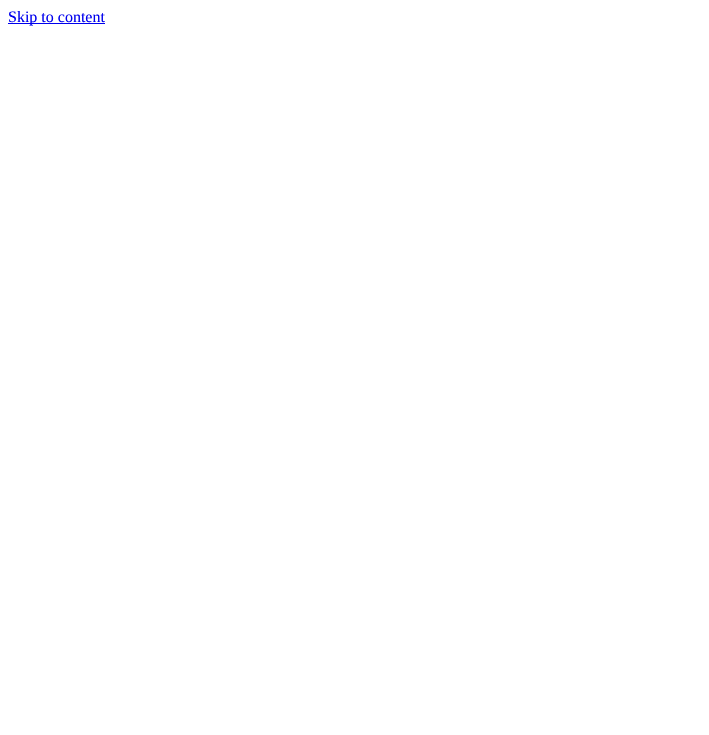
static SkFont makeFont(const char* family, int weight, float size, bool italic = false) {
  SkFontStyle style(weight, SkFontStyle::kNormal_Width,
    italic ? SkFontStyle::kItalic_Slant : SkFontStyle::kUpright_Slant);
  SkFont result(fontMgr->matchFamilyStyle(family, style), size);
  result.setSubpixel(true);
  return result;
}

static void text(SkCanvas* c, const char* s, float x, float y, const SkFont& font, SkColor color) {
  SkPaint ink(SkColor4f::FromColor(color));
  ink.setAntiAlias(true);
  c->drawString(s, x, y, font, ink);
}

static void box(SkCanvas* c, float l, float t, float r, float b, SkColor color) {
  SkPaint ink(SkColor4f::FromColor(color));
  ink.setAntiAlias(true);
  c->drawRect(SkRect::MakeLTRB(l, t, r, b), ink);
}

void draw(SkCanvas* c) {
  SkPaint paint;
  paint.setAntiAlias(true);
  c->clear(0xffffffff);
  box(c, 8, 23, 105, 24, 0xff0000ee);
  SkFont face1 = makeFont("Liberation Serif", 400, 16);
  text(c, "Skip to content", 8, 22, face1, 0xff0000ee);
}
